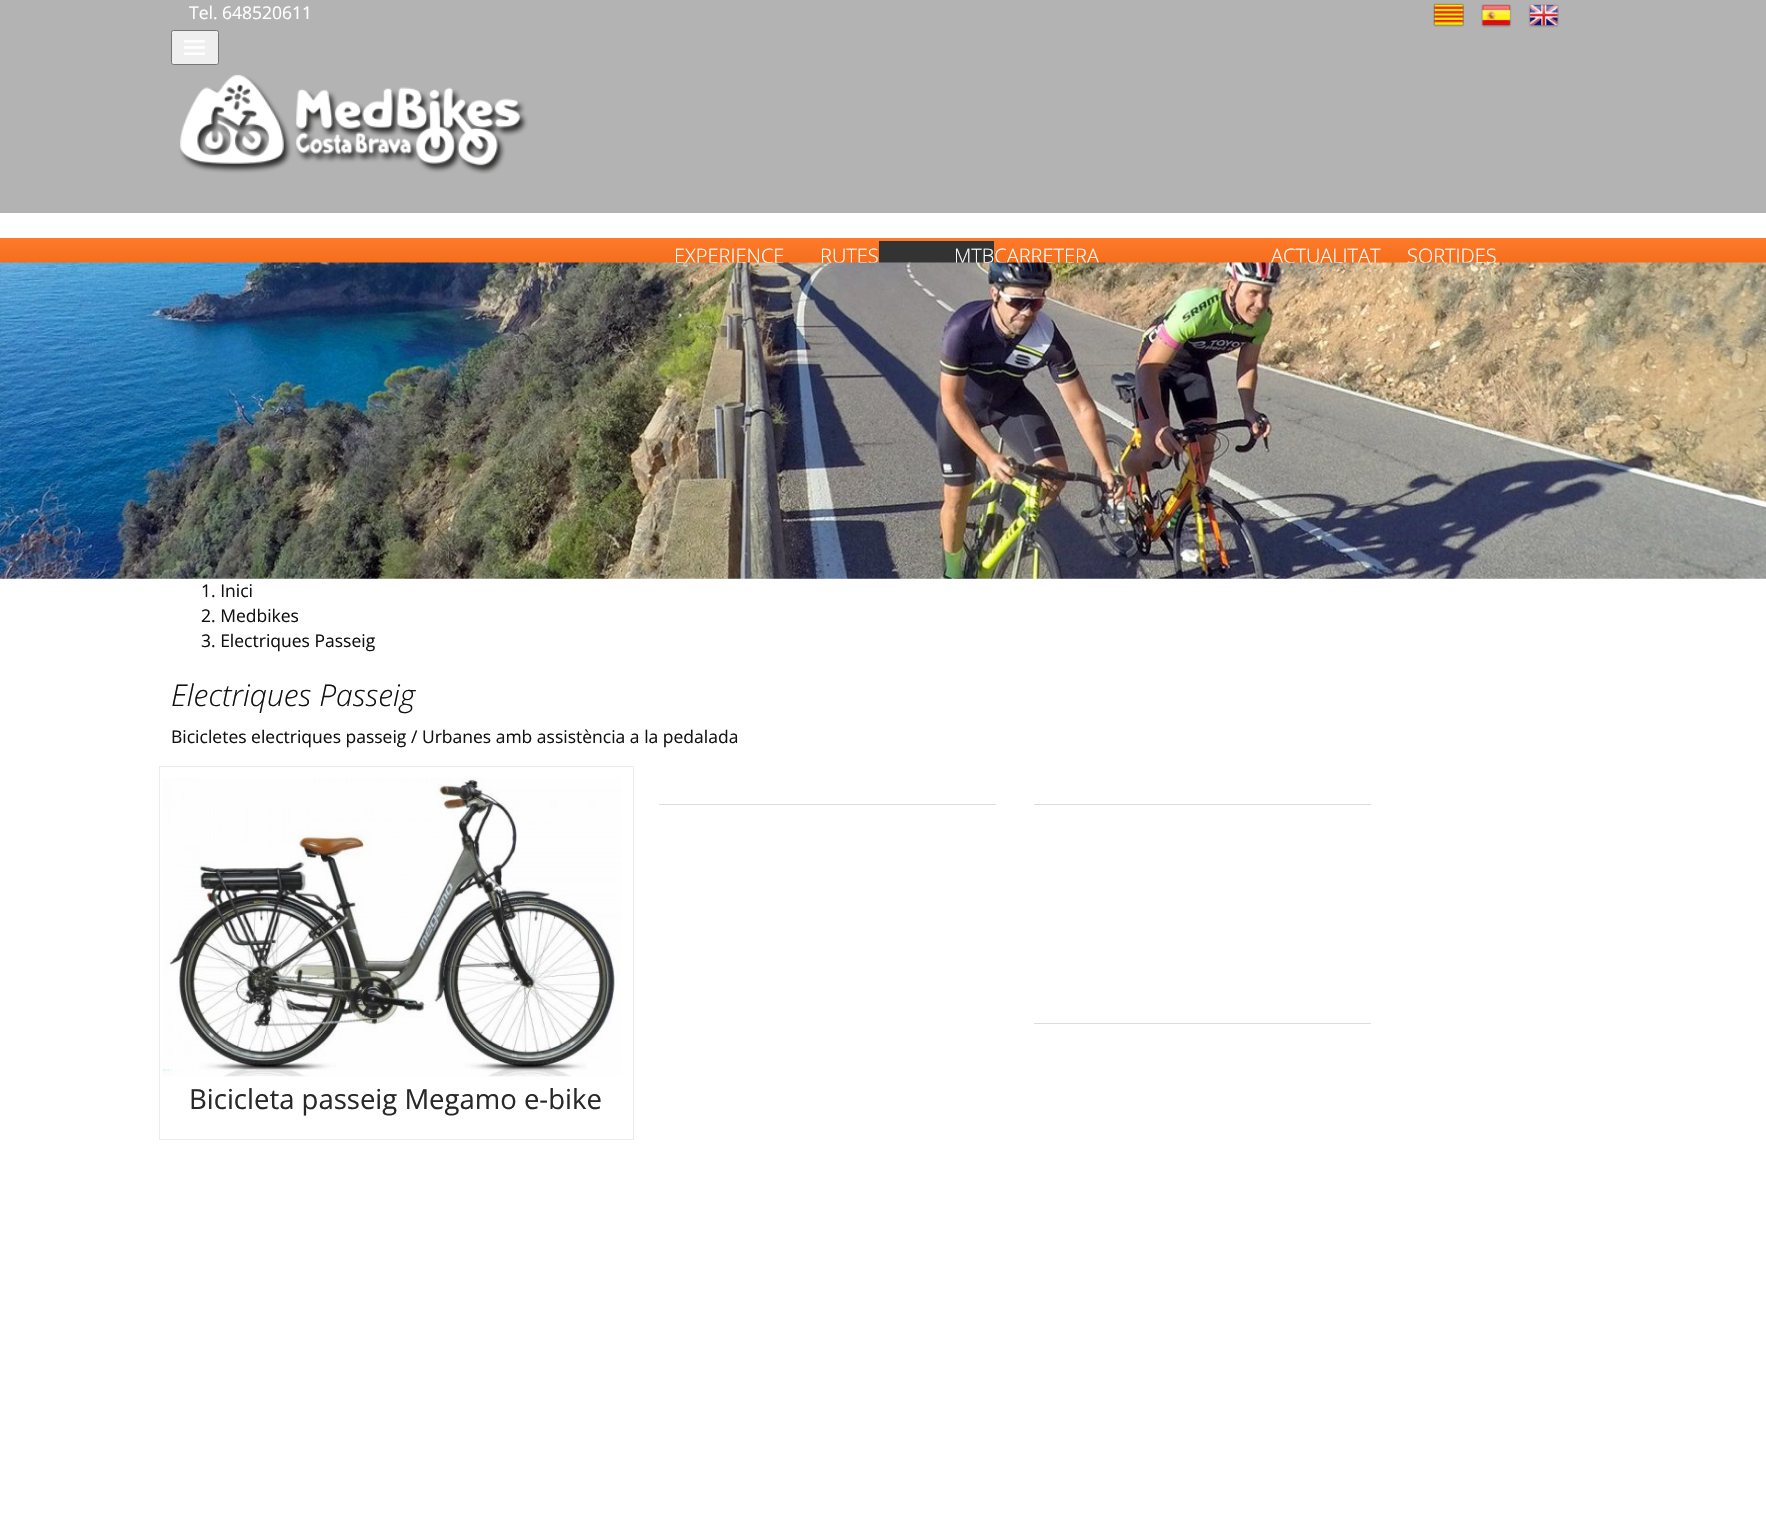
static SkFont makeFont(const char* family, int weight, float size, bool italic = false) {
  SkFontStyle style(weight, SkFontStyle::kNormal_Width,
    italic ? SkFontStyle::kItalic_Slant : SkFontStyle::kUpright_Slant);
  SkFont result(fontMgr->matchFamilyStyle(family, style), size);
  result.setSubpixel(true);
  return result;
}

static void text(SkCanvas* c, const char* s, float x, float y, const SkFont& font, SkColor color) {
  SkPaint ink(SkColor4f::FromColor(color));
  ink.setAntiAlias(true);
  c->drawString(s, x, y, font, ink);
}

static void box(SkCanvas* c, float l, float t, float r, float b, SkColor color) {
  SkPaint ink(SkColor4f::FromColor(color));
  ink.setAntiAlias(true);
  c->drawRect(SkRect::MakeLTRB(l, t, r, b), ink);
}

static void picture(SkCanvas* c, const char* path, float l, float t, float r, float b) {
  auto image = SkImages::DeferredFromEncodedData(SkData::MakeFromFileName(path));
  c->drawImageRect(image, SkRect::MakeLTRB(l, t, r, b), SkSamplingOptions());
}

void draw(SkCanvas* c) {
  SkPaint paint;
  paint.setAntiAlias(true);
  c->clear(0xffffffff);
  box(c, 0, 0, 1766, 213, 0xffb3b3b3);
  SkFont face1 = makeFont("Open Sans", 400, 17.5f);
  text(c, "Tel. 648520611", 189, 19, face1, 0xffffffff);
  picture(c, "img_01.png", 1433, 3, 1464, 27);
  picture(c, "img_02.png", 1481, 4, 1512, 28);
  picture(c, "img_03.png", 1528, 4, 1559, 28);
  paint.setColor(0xffefefef);
  c->drawRoundRect(SkRect::MakeLTRB(171.5f, 30.5f, 218.5f, 64.5f), 2, 2, paint);
  paint.setStyle(SkPaint::kStroke_Style);
  paint.setStrokeWidth(1);
  paint.setColor(0xff767676);
  c->drawRoundRect(SkRect::MakeLTRB(171.5f, 30.5f, 218.5f, 64.5f), 2, 2, paint);
  picture(c, "img_04.png", 184, 40, 205, 55);
  picture(c, "img_05.png", 179, 74, 528, 174);
  paint.setStyle(SkPaint::kFill_Style);
  {
    const SkColor colors[] = {0xfffe7b2b, 0xffe35600};
    const float stops[] = {0, 1};
    const SkPoint ends[] = {{0, 238}, {0, 306}};
    paint.setShader(SkGradientShader::MakeLinear(ends, colors, stops, 2, SkTileMode::kClamp));
    paint.setAlpha(255);
  }
  c->drawRect(SkRect::MakeLTRB(0, 238, 1766, 263), paint);
  SkFont face2 = makeFont("Open Sans", 300, 20);
  text(c, "EXPERIENCE", 674, 263, face2, 0xffffffff);
  text(c, "RUTES", 820, 263, face2, 0xffffffff);
  box(c, 879, 241, 994, 263, 0xff333333);
  text(c, "MTBCARRETERA", 954, 263, face2, 0xffffffff);
  text(c, "ACTUALITAT", 1271, 263, face2, 0xffffffff);
  text(c, "SORTIDES", 1407, 263, face2, 0xffffffff);
  box(c, 659, 804, 996, 805, 0xffdddddd);
  box(c, 1034, 804, 1371, 805, 0xffdddddd);
  box(c, 1034, 1023, 1371, 1024, 0xffdddddd);
  picture(c, "img_06.png", 0, 262, 1766, 579);
  text(c, "1. Inici", 201, 597, face1, 0xff111111);
  text(c, "2. Medbikes", 201, 622, face1, 0xff111111);
  text(c, "3. Electriques Passeig", 201, 647, face1, 0xff111111);
  SkFont face3 = makeFont("Open Sans", 300, 30, true);
  text(c, "Electriques Passeig", 171, 706, face3, 0xff111111);
  text(c, "Bicicletes electriques passeig / Urbanes amb assistència a la pedalada", 171, 743, face1, 0xff111111);
  paint.setStyle(SkPaint::kStroke_Style);
  paint.setShader(nullptr);
  paint.setColor(0xffececec);
  c->drawRect(SkRect::MakeLTRB(159.5f, 766.5f, 633.5f, 1139.5f), paint);
  picture(c, "img_07.png", 162, 778, 621, 1077);
  SkFont face4 = makeFont("Open Sans", 400, 27.5f);
  text(c, "Bicicleta passeig Megamo e-bike", 189, 1109, face4, 0xff282828);
}
